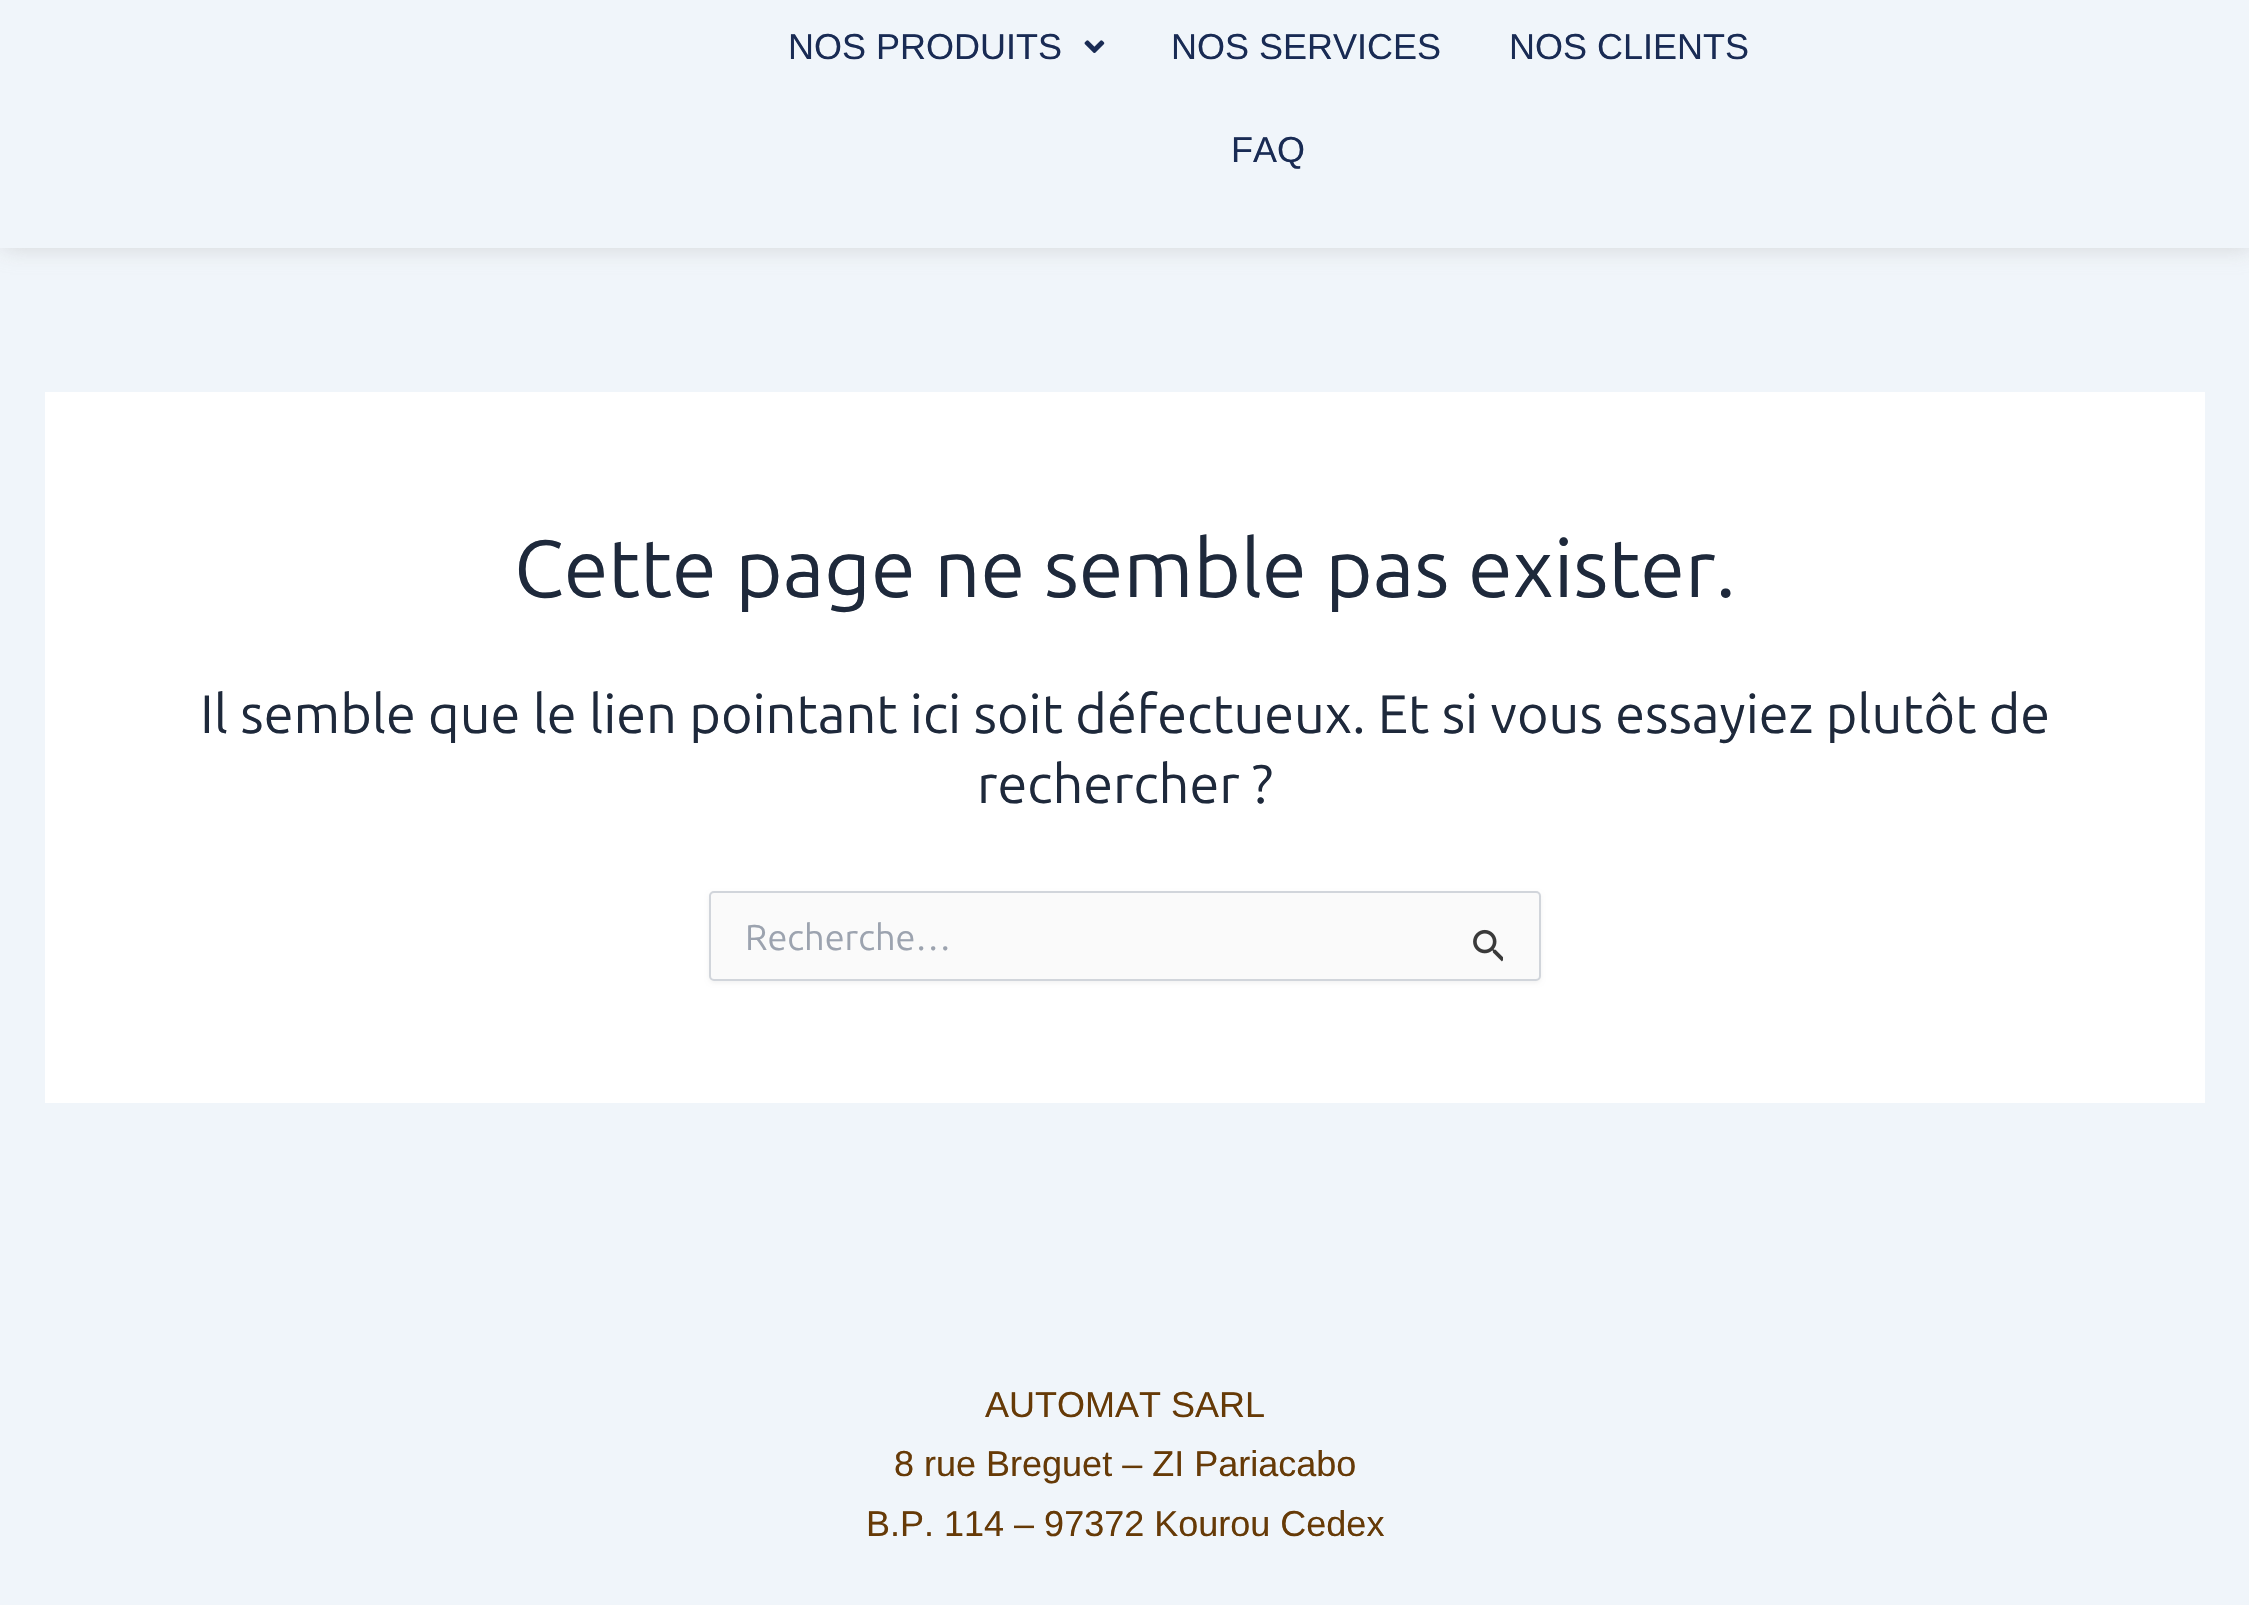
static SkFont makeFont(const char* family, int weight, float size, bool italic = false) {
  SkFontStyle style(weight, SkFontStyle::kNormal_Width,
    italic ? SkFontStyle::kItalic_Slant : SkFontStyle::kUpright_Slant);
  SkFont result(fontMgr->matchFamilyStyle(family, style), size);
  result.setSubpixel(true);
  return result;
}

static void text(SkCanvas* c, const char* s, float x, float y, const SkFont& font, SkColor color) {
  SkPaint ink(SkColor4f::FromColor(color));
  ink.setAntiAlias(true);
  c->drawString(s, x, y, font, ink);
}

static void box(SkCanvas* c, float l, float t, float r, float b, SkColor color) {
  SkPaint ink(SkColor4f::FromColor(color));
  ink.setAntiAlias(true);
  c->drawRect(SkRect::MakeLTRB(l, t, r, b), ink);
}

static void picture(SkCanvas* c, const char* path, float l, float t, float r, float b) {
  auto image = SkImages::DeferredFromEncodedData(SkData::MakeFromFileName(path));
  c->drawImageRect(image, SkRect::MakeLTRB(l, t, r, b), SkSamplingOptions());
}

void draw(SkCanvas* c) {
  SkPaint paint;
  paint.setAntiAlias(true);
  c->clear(0xfff0f5fa);
  c->save();
  c->clipPath(SkPathBuilder(SkPathFillType::kEvenOdd).moveTo(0, 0).lineTo(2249, 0).lineTo(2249, 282).lineTo(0, 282).close().moveTo(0, -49).lineTo(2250, -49).lineTo(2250, 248).lineTo(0, 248).close().detach(), true);
  paint.setColor(0x8cbcbcbc);
  paint.setMaskFilter(SkMaskFilter::MakeBlur(kNormal_SkBlurStyle, 11));
  c->drawRect(SkRect::MakeLTRB(2, -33, 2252, 248), paint);
  paint.setMaskFilter(nullptr);
  c->restore();
  SkFont face1 = makeFont("Liberation Sans", 400, 36);
  text(c, "NOS PRODUITS", 788, 59, face1, 0xff192b54);
  picture(c, "img_01.png", 1084, 40, 1105, 53);
  text(c, "NOS SERVICES", 1171, 59, face1, 0xff192b54);
  text(c, "NOS CLIENTS", 1509, 59, face1, 0xff192b54);
  text(c, "FAQ", 1231, 162, face1, 0xff192b54);
  box(c, 45, 392, 2205, 1103, 0xffffffff);
  SkFont face2 = makeFont("Ubuntu", 400, 81);
  text(c, "Cette page ne semble pas exister.", 514, 597, face2, 0xff1e293b);
  SkFont face3 = makeFont("Ubuntu", 400, 54);
  text(c, "Il semble que le lien pointant ici soit défectueux. Et si vous essayiez plutôt de", 200, 733, face3, 0xff1e293b);
  text(c, "rechercher ?", 977, 803, face3, 0xff1e293b);
  paint.setColor(0x0d000000);
  paint.setMaskFilter(SkMaskFilter::MakeBlur(kNormal_SkBlurStyle, 2));
  c->drawRoundRect(SkRect::MakeLTRB(709, 893, 1541, 983), 5, 5, paint);
  paint.setMaskFilter(nullptr);
  paint.setColor(0xfffafafa);
  c->drawRoundRect(SkRect::MakeLTRB(710, 892, 1540, 980), 4, 4, paint);
  paint.setStyle(SkPaint::kStroke_Style);
  paint.setStrokeWidth(2);
  paint.setColor(0xffd1d5db);
  c->drawRoundRect(SkRect::MakeLTRB(710, 892, 1540, 980), 4, 4, paint);
  SkFont face4 = makeFont("Ubuntu", 400, 36);
  text(c, "Recherche…", 745, 950, face4, 0xff9ca3af);
  picture(c, "img_02.png", 1473, 929, 1503, 962);
  text(c, "AUTOMAT SARL", 985, 1417, face1, 0xff663a07);
  text(c, "8 rue Breguet – ZI Pariacabo", 894, 1476, face1, 0xff663a07);
  text(c, "B.P. 114 – 97372 Kourou Cedex", 866, 1536, face1, 0xff663a07);
}
